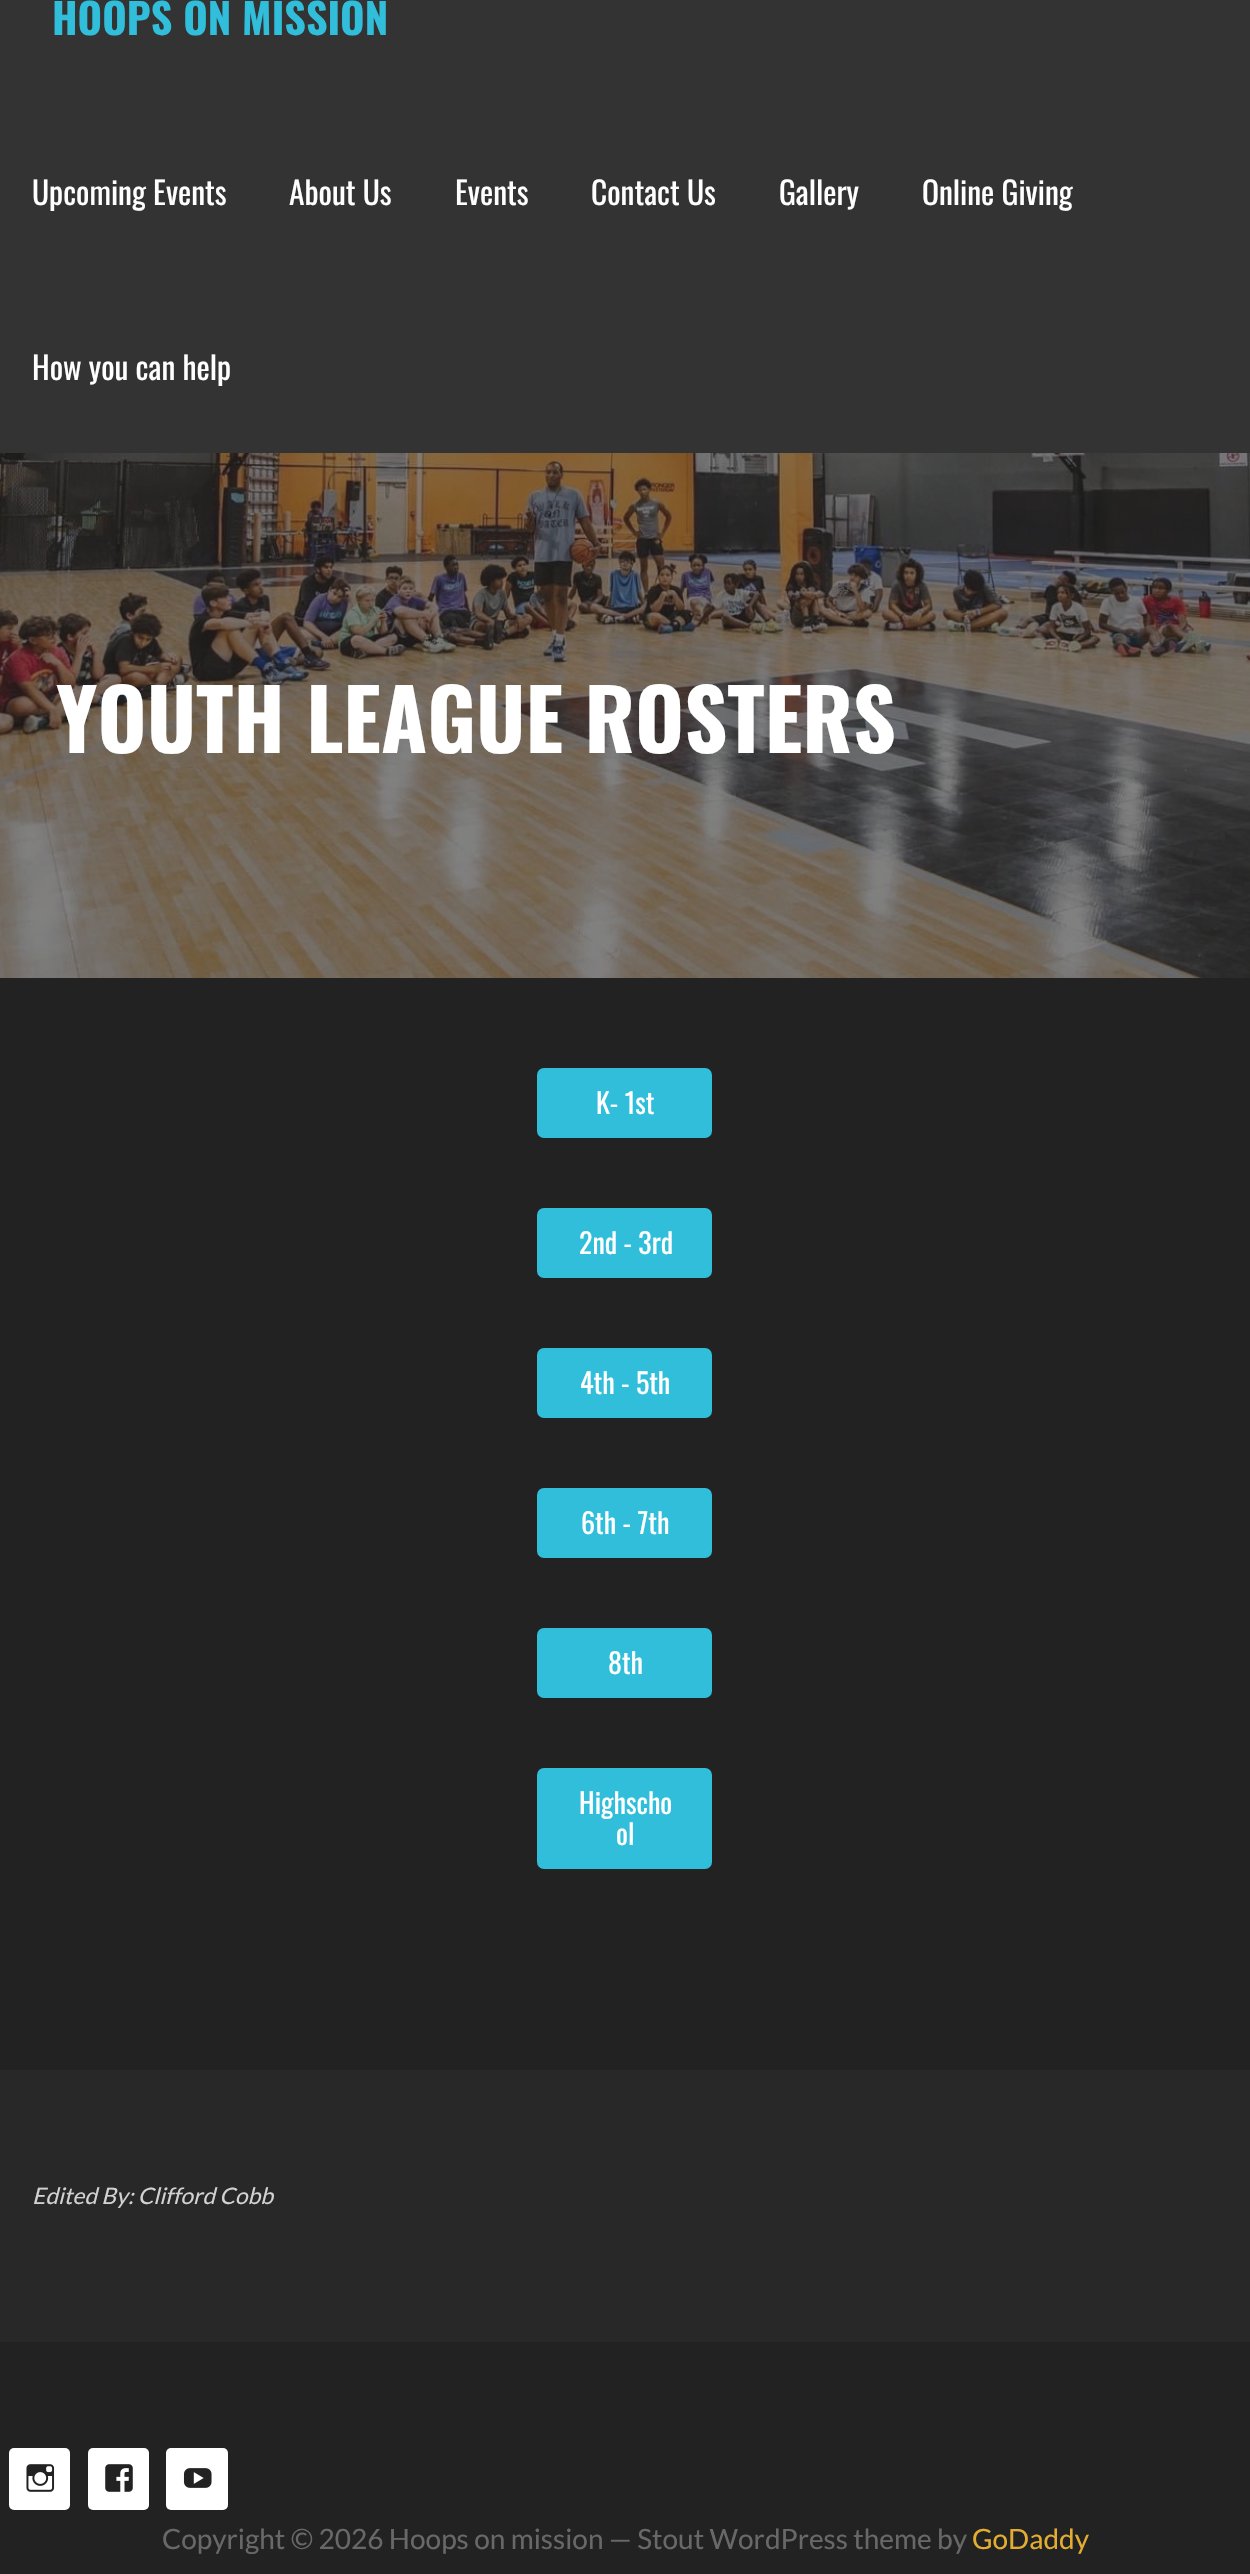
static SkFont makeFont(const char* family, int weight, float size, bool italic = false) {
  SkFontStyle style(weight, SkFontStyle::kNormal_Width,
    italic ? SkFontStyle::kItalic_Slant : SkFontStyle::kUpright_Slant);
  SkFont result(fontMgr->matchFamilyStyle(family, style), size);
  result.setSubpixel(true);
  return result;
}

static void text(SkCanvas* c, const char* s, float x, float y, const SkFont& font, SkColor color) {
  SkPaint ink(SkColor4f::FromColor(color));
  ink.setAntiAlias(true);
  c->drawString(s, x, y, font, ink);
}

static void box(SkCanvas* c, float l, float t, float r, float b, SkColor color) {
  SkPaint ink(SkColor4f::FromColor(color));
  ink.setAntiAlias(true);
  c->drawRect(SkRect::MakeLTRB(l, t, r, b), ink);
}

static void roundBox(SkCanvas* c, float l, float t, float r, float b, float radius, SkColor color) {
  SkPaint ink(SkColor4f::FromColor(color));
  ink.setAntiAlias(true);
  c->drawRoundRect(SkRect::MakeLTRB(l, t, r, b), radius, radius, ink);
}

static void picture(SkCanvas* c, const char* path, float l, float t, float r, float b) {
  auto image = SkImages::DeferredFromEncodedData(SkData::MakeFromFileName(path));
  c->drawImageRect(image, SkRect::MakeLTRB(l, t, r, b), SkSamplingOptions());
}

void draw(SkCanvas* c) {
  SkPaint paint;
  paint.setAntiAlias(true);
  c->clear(0xff222222);
  box(c, 0, 0, 1250, 453, 0xff333333);
  SkFont face1 = makeFont("Oswald", 700, 42);
  text(c, "HOOPS ON MISSION", 52, 35, face1, 0xff30bedb);
  SkFont face2 = makeFont("Oswald", 400, 31.5f);
  text(c, "Upcoming Events", 32, 205, face2, 0xffffffff);
  text(c, "About Us", 289, 205, face2, 0xffffffff);
  text(c, "Events", 455, 205, face2, 0xffffffff);
  text(c, "Contact Us", 591, 205, face2, 0xffffffff);
  text(c, "Gallery", 779, 205, face2, 0xffffffff);
  text(c, "Online Giving", 922, 205, face2, 0xffffffff);
  text(c, "How you can help", 32, 380, face2, 0xffffffff);
  picture(c, "img_01.png", 0, 453, 1250, 978);
  SkFont face3 = makeFont("Oswald", 700, 84);
  text(c, "YOUTH LEAGUE ROSTERS", 56, 753, face3, 0xffffffff);
  paint.setColor(0xff30bedb);
  c->drawRoundRect(SkRect::MakeLTRB(538, 1069, 711, 1137), 6, 6, paint);
  paint.setStyle(SkPaint::kStroke_Style);
  paint.setStrokeWidth(2);
  c->drawRoundRect(SkRect::MakeLTRB(538, 1069, 711, 1137), 6, 6, paint);
  SkFont face4 = makeFont("Oswald", 400, 28);
  text(c, "K- 1st", 596, 1114, face4, 0xffffffff);
  paint.setStyle(SkPaint::kFill_Style);
  c->drawRoundRect(SkRect::MakeLTRB(538, 1209, 711, 1277), 6, 6, paint);
  paint.setStyle(SkPaint::kStroke_Style);
  c->drawRoundRect(SkRect::MakeLTRB(538, 1209, 711, 1277), 6, 6, paint);
  text(c, "2nd - 3rd", 579, 1254, face4, 0xffffffff);
  paint.setStyle(SkPaint::kFill_Style);
  c->drawRoundRect(SkRect::MakeLTRB(538, 1349, 711, 1417), 6, 6, paint);
  paint.setStyle(SkPaint::kStroke_Style);
  c->drawRoundRect(SkRect::MakeLTRB(538, 1349, 711, 1417), 6, 6, paint);
  text(c, "4th - 5th", 580, 1394, face4, 0xffffffff);
  paint.setStyle(SkPaint::kFill_Style);
  c->drawRoundRect(SkRect::MakeLTRB(538, 1489, 711, 1557), 6, 6, paint);
  paint.setStyle(SkPaint::kStroke_Style);
  c->drawRoundRect(SkRect::MakeLTRB(538, 1489, 711, 1557), 6, 6, paint);
  text(c, "6th - 7th", 581, 1534, face4, 0xffffffff);
  paint.setStyle(SkPaint::kFill_Style);
  c->drawRoundRect(SkRect::MakeLTRB(538, 1629, 711, 1697), 6, 6, paint);
  paint.setStyle(SkPaint::kStroke_Style);
  c->drawRoundRect(SkRect::MakeLTRB(538, 1629, 711, 1697), 6, 6, paint);
  text(c, "8th", 608, 1674, face4, 0xffffffff);
  paint.setStyle(SkPaint::kFill_Style);
  c->drawRoundRect(SkRect::MakeLTRB(538, 1769, 711, 1868), 6, 6, paint);
  paint.setStyle(SkPaint::kStroke_Style);
  c->drawRoundRect(SkRect::MakeLTRB(538, 1769, 711, 1868), 6, 6, paint);
  text(c, "Highscho", 579, 1814, face4, 0xffffffff);
  text(c, "ol", 616, 1845, face4, 0xffffffff);
  box(c, 0, 2070, 1250, 2342, 0xff282828);
  SkFont face5 = makeFont("Lato", 400, 22.75f, true);
  text(c, "Edited By: Clifford Cobb", 32, 2204, face5, 0xffd2d2d2);
  roundBox(c, 9, 2448, 70, 2510, 5, 0xffffffff);
  picture(c, "img_02.png", 26, 2464, 55, 2492);
  roundBox(c, 88, 2448, 149, 2510, 5, 0xffffffff);
  picture(c, "img_03.png", 105, 2464, 133, 2492);
  roundBox(c, 166, 2448, 228, 2510, 5, 0xffffffff);
  picture(c, "img_04.png", 183, 2468, 212, 2488);
  SkFont face6 = makeFont("Lato", 400, 28);
  text(c, "Copyright © 2026 Hoops on mission — Stout WordPress theme by", 162, 2549, face6, 0xff686868);
  text(c, "GoDaddy", 972, 2549, face6, 0xffe3ad31);
}
